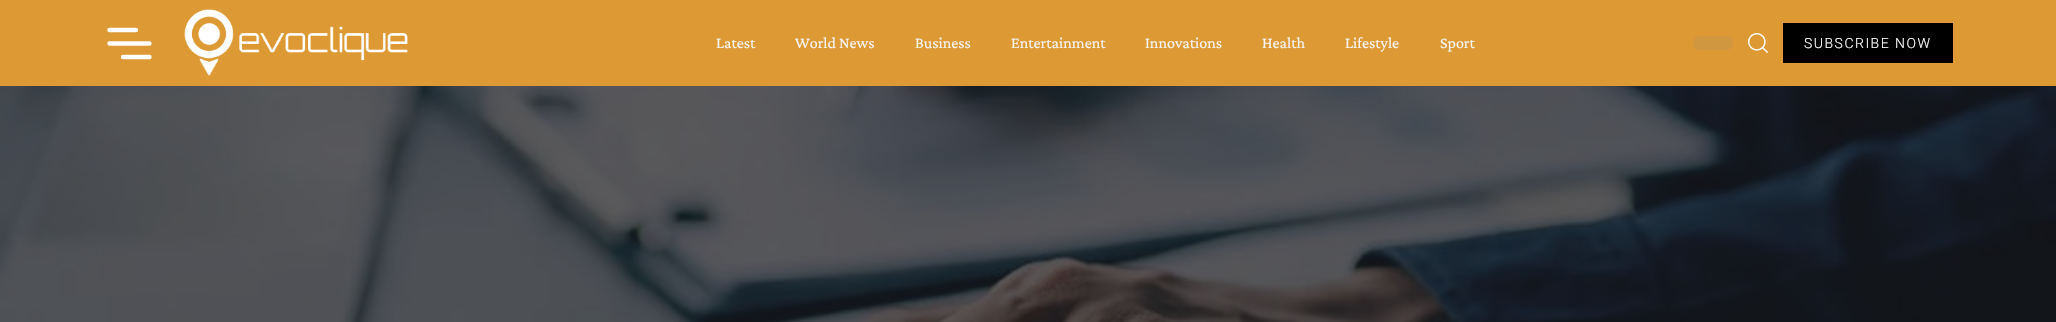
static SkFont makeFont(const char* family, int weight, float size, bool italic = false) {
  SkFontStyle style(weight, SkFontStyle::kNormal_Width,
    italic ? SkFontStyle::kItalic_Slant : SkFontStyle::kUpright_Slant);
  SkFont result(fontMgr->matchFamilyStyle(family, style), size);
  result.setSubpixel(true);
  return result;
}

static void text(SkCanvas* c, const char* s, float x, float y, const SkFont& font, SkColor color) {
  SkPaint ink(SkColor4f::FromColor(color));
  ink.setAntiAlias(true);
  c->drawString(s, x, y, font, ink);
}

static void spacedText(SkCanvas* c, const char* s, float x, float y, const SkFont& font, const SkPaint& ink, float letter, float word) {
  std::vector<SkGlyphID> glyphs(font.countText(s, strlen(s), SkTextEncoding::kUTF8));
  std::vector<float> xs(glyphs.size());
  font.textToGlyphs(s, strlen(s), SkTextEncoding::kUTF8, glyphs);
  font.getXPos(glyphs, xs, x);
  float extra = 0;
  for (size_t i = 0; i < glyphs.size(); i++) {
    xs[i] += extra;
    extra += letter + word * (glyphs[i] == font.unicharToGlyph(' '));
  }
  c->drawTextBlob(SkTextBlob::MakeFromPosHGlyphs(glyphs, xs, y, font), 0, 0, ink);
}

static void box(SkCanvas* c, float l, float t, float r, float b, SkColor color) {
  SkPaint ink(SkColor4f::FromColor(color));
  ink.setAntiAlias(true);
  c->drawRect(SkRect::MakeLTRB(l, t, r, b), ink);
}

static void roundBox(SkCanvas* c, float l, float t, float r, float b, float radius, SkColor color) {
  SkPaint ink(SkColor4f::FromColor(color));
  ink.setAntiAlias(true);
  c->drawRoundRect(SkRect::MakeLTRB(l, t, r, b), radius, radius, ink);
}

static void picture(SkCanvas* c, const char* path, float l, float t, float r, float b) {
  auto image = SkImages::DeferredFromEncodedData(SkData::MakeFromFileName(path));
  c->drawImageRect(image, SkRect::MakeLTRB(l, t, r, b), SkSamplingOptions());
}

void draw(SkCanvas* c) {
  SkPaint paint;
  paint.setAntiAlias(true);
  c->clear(0xffdd9933);
  paint.setStyle(SkPaint::kStroke_Style);
  paint.setStrokeWidth(4.4f);
  paint.setStrokeCap(SkPaint::kRound_Cap);
  paint.setStrokeJoin(SkPaint::kRound_Join);
  paint.setColor(0xffffffff);
  c->drawPath(SkPathBuilder().moveTo(109.5f, 43.5f).lineTo(149.5f, 43.5f).moveTo(123, 57).lineTo(149.5f, 57).moveTo(109.5f, 30).lineTo(136, 30).detach(), paint);
  picture(c, "img_01.png", 184, 9, 408, 76);
  SkFont face1 = makeFont("Crimson Pro", 400, 16);
  text(c, "Latest", 716, 48, face1, 0xfff5f5f5);
  text(c, "World News", 795, 48, face1, 0xfff5f5f5);
  text(c, "Business", 915, 48, face1, 0xfff5f5f5);
  text(c, "Entertainment", 1011, 48, face1, 0xfff5f5f5);
  text(c, "Innovations", 1145, 48, face1, 0xfff5f5f5);
  text(c, "Health", 1262, 48, face1, 0xfff5f5f5);
  text(c, "Lifestyle", 1345, 48, face1, 0xfff5f5f5);
  text(c, "Sport", 1440, 48, face1, 0xfff5f5f5);
  roundBox(c, 1693, 36, 1733, 50, 7, 0xffd09640);
  picture(c, "img_02.png", 1748, 33, 1768, 53);
  box(c, 1783, 23, 1953, 63, 0xff000000);
  SkFont face2 = makeFont("Roboto", 300, 14);
  paint.setStyle(SkPaint::kFill_Style);
  spacedText(c, "SUBSCRIBE NOW", 1804, 48, face2, paint, 1.5f, 0);
  box(c, 0, 86, 2056, 322, 0xff191c20);
  picture(c, "img_03.png", 0, 86, 2056, 322);
}
